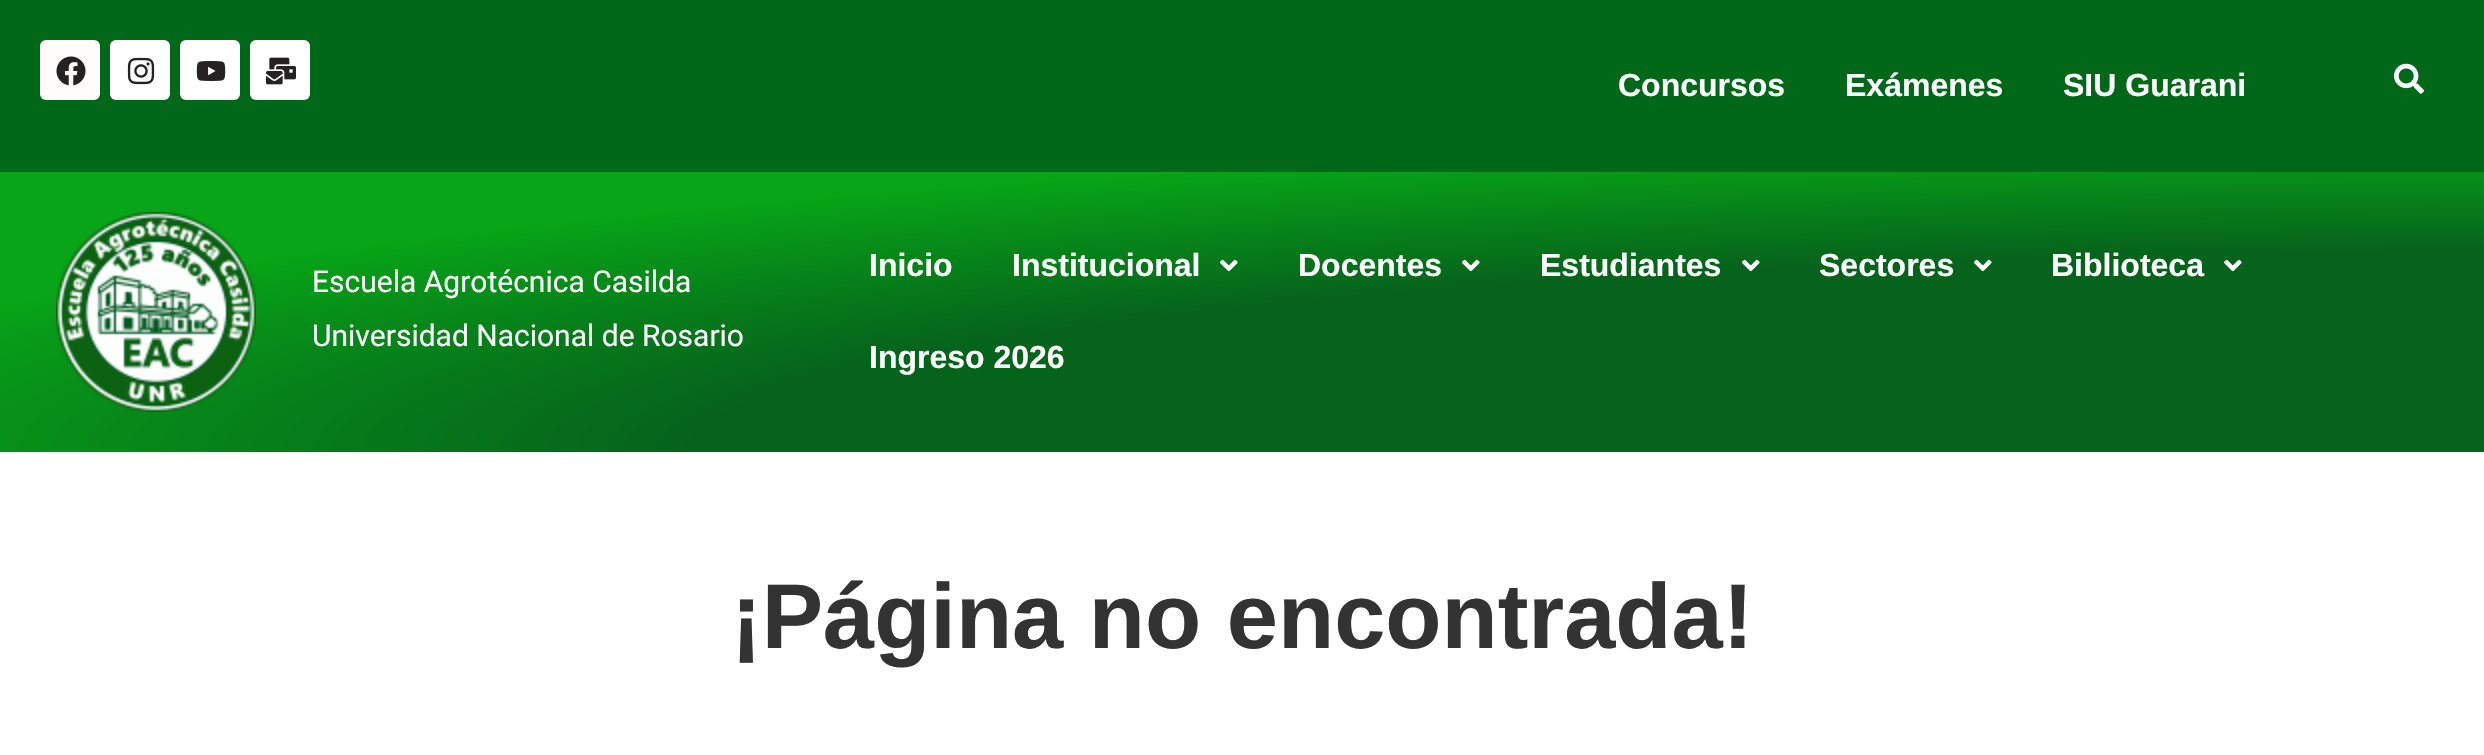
static SkFont makeFont(const char* family, int weight, float size, bool italic = false) {
  SkFontStyle style(weight, SkFontStyle::kNormal_Width,
    italic ? SkFontStyle::kItalic_Slant : SkFontStyle::kUpright_Slant);
  SkFont result(fontMgr->matchFamilyStyle(family, style), size);
  result.setSubpixel(true);
  return result;
}

static void text(SkCanvas* c, const char* s, float x, float y, const SkFont& font, SkColor color) {
  SkPaint ink(SkColor4f::FromColor(color));
  ink.setAntiAlias(true);
  c->drawString(s, x, y, font, ink);
}

static void box(SkCanvas* c, float l, float t, float r, float b, SkColor color) {
  SkPaint ink(SkColor4f::FromColor(color));
  ink.setAntiAlias(true);
  c->drawRect(SkRect::MakeLTRB(l, t, r, b), ink);
}

static void roundBox(SkCanvas* c, float l, float t, float r, float b, float radius, SkColor color) {
  SkPaint ink(SkColor4f::FromColor(color));
  ink.setAntiAlias(true);
  c->drawRoundRect(SkRect::MakeLTRB(l, t, r, b), radius, radius, ink);
}

static void picture(SkCanvas* c, const char* path, float l, float t, float r, float b) {
  auto image = SkImages::DeferredFromEncodedData(SkData::MakeFromFileName(path));
  c->drawImageRect(image, SkRect::MakeLTRB(l, t, r, b), SkSamplingOptions());
}

void draw(SkCanvas* c) {
  SkPaint paint;
  paint.setAntiAlias(true);
  c->clear(0xffffffff);
  box(c, 0, 0, 2484, 172, 0xff01681a);
  roundBox(c, 40, 40, 100, 100, 6, 0xfffffcfc);
  picture(c, "img_01.png", 56, 56, 86, 86);
  roundBox(c, 110, 40, 170, 100, 6, 0xffffffff);
  picture(c, "img_02.png", 127, 57, 155, 85);
  roundBox(c, 180, 40, 240, 100, 6, 0xffffffff);
  picture(c, "img_03.png", 196, 61, 226, 81);
  roundBox(c, 250, 40, 310, 100, 6, 0xffffffff);
  picture(c, "img_04.png", 266, 57, 296, 85);
  SkFont face1 = makeFont("Liberation Sans", 700, 32);
  text(c, "Concursos", 1618, 96, face1, 0xffffffff);
  text(c, "Exámenes", 1845, 96, face1, 0xffffffff);
  text(c, "SIU Guarani", 2063, 96, face1, 0xffffffff);
  picture(c, "img_05.png", 2394, 63, 2424, 94);
  {
    const SkColor colors[] = {0xff06631c, 0xff07a517};
    const float stops[] = {0.51f, 0.8f};
    SkMatrix m = SkMatrix::Translate(2484, 452).preScale(3513, 396);
    paint.setShader(SkGradientShader::MakeRadial({0, 0}, 1, colors, stops, 2, SkTileMode::kClamp, 0, &m));
    paint.setAlpha(255);
  }
  c->drawRect(SkRect::MakeLTRB(0, 172, 2484, 452), paint);
  picture(c, "img_06.png", 56, 212, 256, 412);
  SkFont face2 = makeFont("Roboto", 400, 30);
  text(c, "Escuela Agrotécnica Casilda", 312, 292, face2, 0xffffffff);
  text(c, "Universidad Nacional de Rosario", 312, 346, face2, 0xffffffff);
  text(c, "Inicio", 869, 276, face1, 0xffffffff);
  text(c, "Institucional", 1012, 276, face1, 0xffffffff);
  picture(c, "img_07.png", 1220, 259, 1238, 272);
  text(c, "Docentes", 1298, 276, face1, 0xffffffff);
  picture(c, "img_08.png", 1462, 259, 1480, 272);
  text(c, "Estudiantes", 1540, 276, face1, 0xffffffff);
  picture(c, "img_09.png", 1742, 259, 1760, 272);
  text(c, "Sectores", 1819, 276, face1, 0xffffffff);
  picture(c, "img_10.png", 1974, 259, 1992, 272);
  text(c, "Biblioteca", 2051, 276, face1, 0xffffffff);
  picture(c, "img_10.png", 2224, 259, 2242, 272);
  text(c, "Ingreso 2026", 869, 368, face1, 0xffffffff);
  SkFont face3 = makeFont("Liberation Sans", 700, 92);
  text(c, "¡Página no encontrada!", 731, 648, face3, 0xff333333);
}
